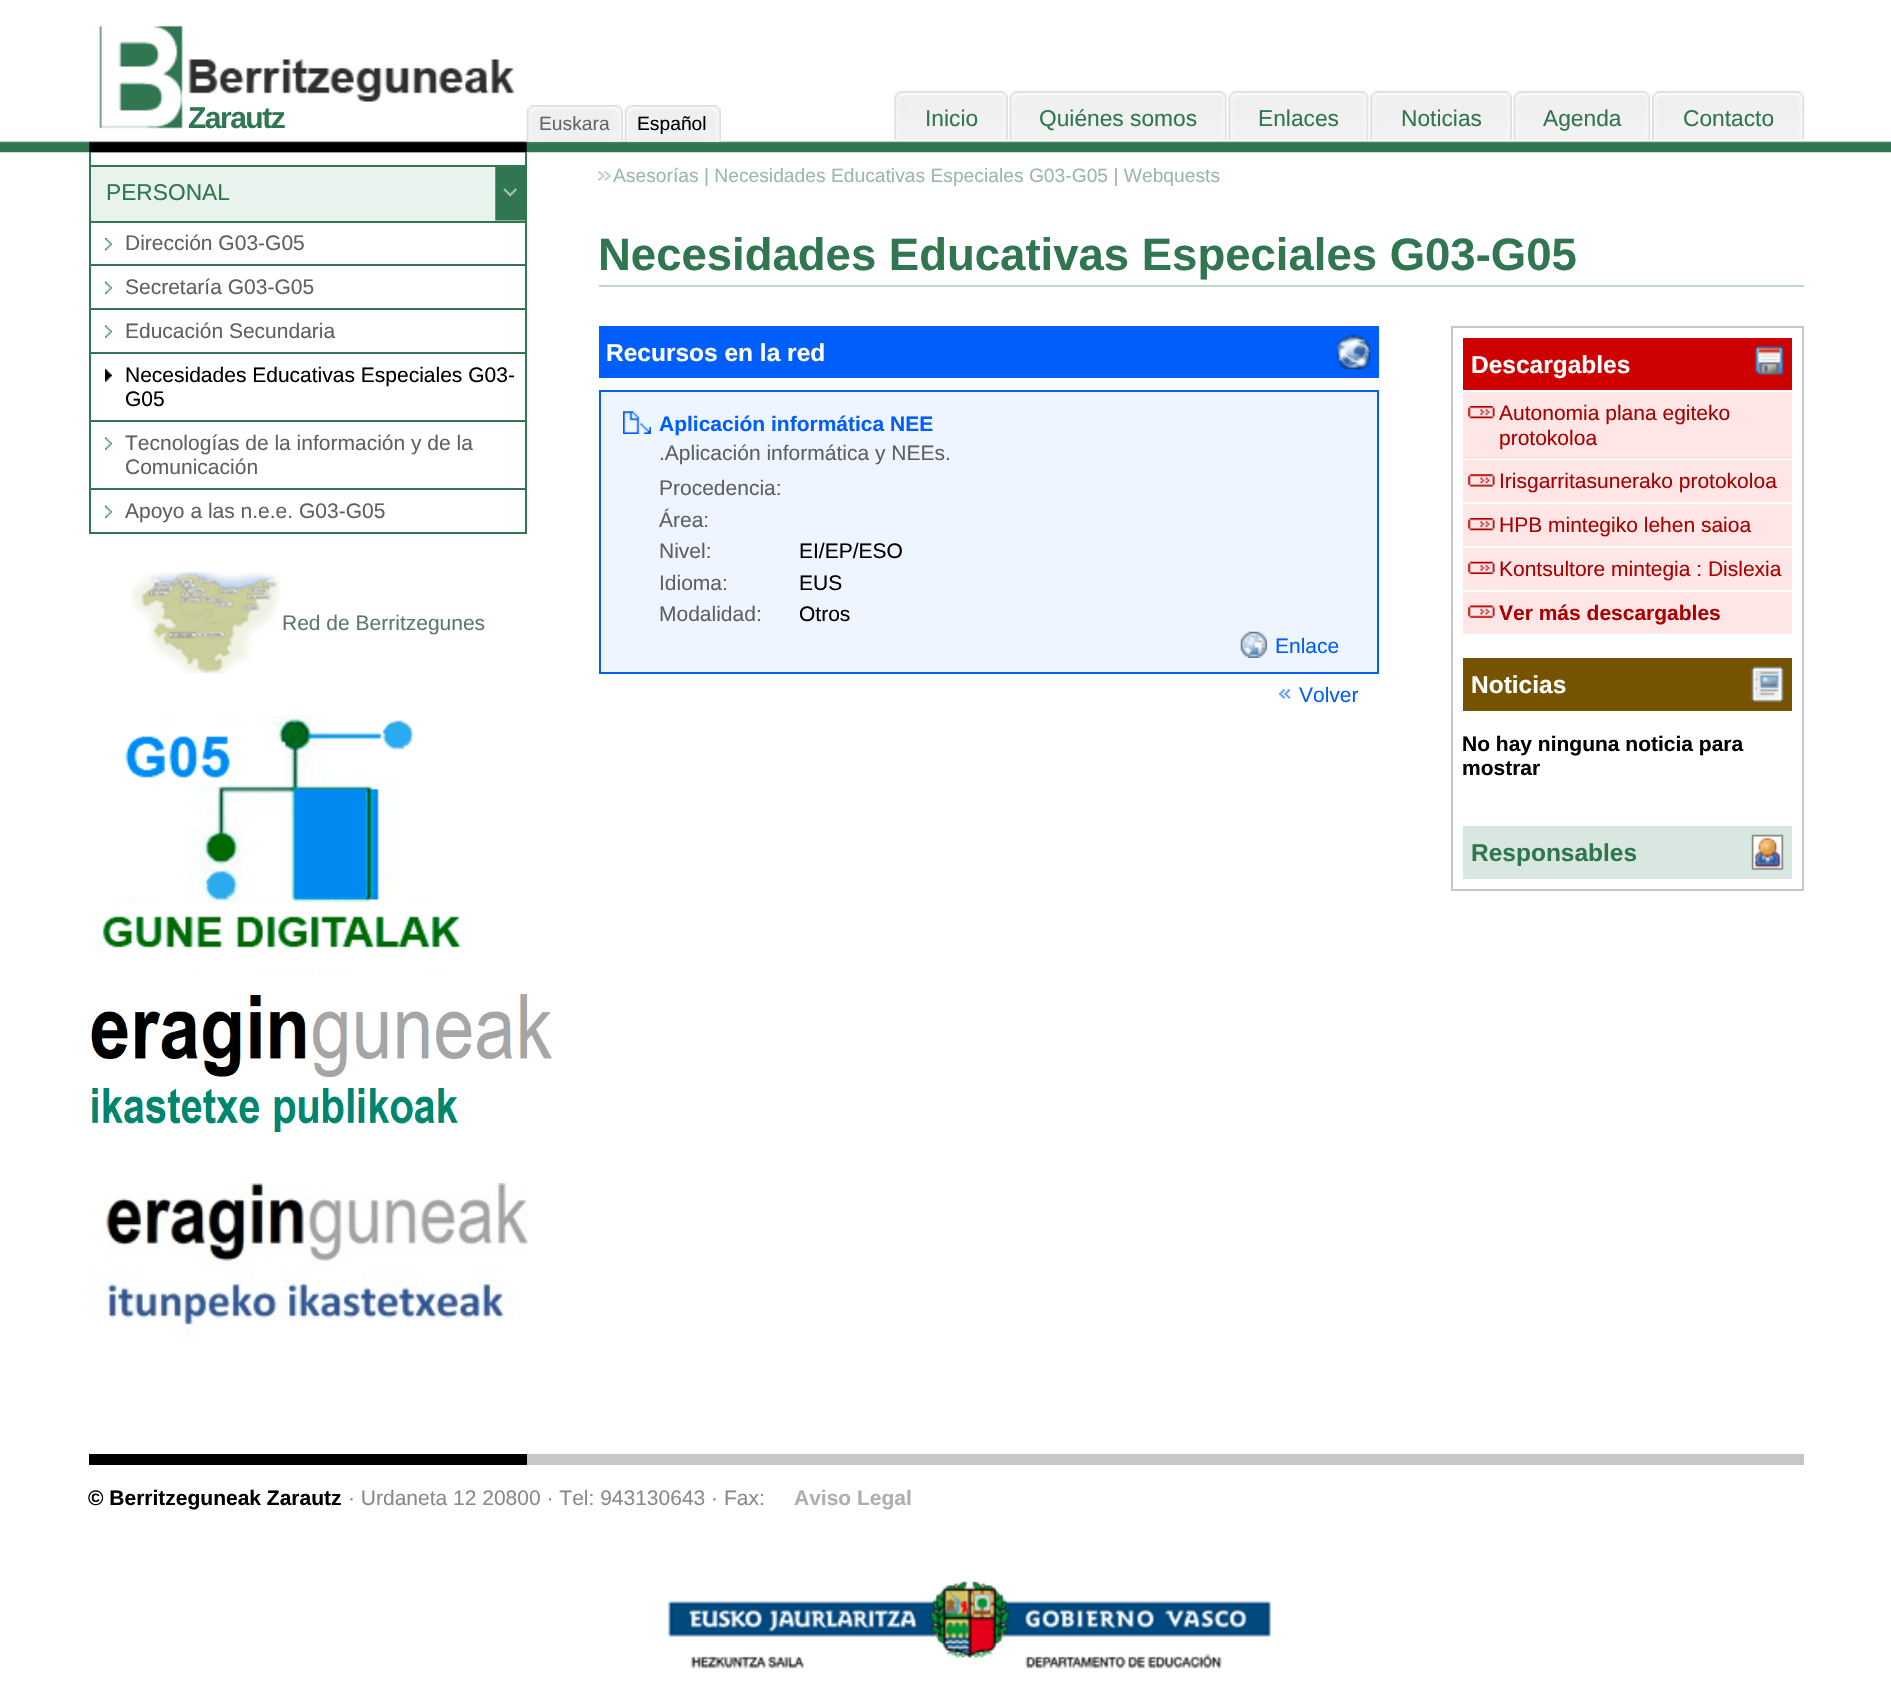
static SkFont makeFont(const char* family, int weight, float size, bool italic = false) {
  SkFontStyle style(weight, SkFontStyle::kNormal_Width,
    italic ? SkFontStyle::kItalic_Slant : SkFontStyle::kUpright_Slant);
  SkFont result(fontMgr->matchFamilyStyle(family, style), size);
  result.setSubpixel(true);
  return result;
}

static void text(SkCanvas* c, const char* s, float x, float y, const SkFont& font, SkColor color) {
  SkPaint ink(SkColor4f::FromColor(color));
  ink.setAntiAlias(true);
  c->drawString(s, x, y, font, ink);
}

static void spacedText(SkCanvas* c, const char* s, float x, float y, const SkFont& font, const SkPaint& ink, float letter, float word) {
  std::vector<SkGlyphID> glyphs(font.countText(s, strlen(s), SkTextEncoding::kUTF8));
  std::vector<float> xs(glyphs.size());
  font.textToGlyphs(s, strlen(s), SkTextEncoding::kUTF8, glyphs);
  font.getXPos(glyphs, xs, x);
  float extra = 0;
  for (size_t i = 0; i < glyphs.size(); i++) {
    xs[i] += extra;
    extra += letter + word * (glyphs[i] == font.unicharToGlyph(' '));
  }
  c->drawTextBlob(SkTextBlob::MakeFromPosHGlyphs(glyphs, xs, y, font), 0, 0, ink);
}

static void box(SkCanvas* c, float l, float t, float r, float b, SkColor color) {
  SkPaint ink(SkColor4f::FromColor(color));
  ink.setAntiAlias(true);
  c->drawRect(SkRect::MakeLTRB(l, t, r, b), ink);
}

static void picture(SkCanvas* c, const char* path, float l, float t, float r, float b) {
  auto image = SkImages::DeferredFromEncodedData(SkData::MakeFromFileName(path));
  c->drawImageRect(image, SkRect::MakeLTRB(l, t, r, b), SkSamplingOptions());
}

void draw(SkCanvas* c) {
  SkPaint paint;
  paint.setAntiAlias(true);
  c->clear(0xffffffff);
  picture(c, "img_01.png", 0, 141, 1891, 153);
  picture(c, "img_02.png", 89, 25, 527, 153);
  SkFont face1 = makeFont("Liberation Sans", 700, 30);
  paint.setColor(0xff307650);
  spacedText(c, "Zarautz", 188, 128, face1, paint, -1.5f, 0);
  picture(c, "img_03.png", 526, 105, 623, 142);
  SkFont face2 = makeFont("Liberation Sans", 400, 19.25f);
  text(c, "Euskara", 539, 130, face2, 0xff676562);
  picture(c, "img_04.png", 624, 105, 721, 142);
  text(c, "Español", 637, 130, face2, 0xff000000);
  picture(c, "img_05.png", 894, 91, 1001, 140);
  picture(c, "img_06.png", 1001, 91, 1008, 140);
  SkFont face3 = makeFont("Liberation Sans", 400, 22.75f);
  text(c, "Inicio", 925, 126, face3, 0xff307650);
  picture(c, "img_07.png", 1009, 91, 1227, 140);
  picture(c, "img_08.png", 1220, 91, 1227, 140);
  text(c, "Quiénes somos", 1039, 126, face3, 0xff307650);
  picture(c, "img_09.png", 1228, 91, 1369, 140);
  picture(c, "img_10.png", 1361, 91, 1369, 140);
  text(c, "Enlaces", 1258, 126, face3, 0xff307650);
  picture(c, "img_11.png", 1370, 91, 1505, 140);
  picture(c, "img_12.png", 1505, 91, 1512, 140);
  text(c, "Noticias", 1401, 126, face3, 0xff307650);
  picture(c, "img_13.png", 1513, 91, 1651, 140);
  picture(c, "img_14.png", 1643, 91, 1650, 140);
  text(c, "Agenda", 1543, 126, face3, 0xff307650);
  picture(c, "img_15.png", 1652, 91, 1805, 140);
  picture(c, "img_16.png", 1797, 91, 1804, 140);
  text(c, "Contacto", 1683, 126, face3, 0xff307650);
  box(c, 525, 152, 527, 534, 0xff307650);
  box(c, 89, 532, 527, 534, 0xff307650);
  box(c, 89, 152, 91, 534, 0xff307650);
  box(c, 91, 167, 525, 221, 0xffe8f3ed);
  picture(c, "img_17.png", 495, 167, 525, 221);
  box(c, 91, 165, 525, 167, 0xff307650);
  text(c, "PERSONAL", 106, 200, face3, 0xff307650);
  picture(c, "img_18.png", 105, 238, 112, 251);
  box(c, 91, 221, 525, 223, 0xff307650);
  SkFont face4 = makeFont("Liberation Sans", 400, 21);
  text(c, "Dirección G03-G05", 125, 250, face4, 0xff606060);
  picture(c, "img_19.png", 105, 281, 112, 294);
  box(c, 91, 264, 525, 266, 0xff307650);
  text(c, "Secretaría G03-G05", 125, 294, face4, 0xff606060);
  picture(c, "img_20.png", 105, 325, 112, 338);
  box(c, 91, 308, 525, 310, 0xff307650);
  text(c, "Educación Secundaria", 125, 338, face4, 0xff606060);
  picture(c, "img_21.png", 105, 369, 112, 382);
  box(c, 91, 352, 525, 354, 0xff307650);
  text(c, "Necesidades Educativas Especiales G03-", 125, 382, face4, 0xff000000);
  text(c, "G05", 125, 406, face4, 0xff000000);
  picture(c, "img_20.png", 105, 437, 112, 450);
  box(c, 91, 420, 525, 422, 0xff307650);
  text(c, "Tecnologías de la información y de la", 125, 450, face4, 0xff606060);
  text(c, "Comunicación", 125, 474, face4, 0xff606060);
  picture(c, "img_19.png", 105, 505, 112, 518);
  box(c, 91, 488, 525, 490, 0xff307650);
  text(c, "Apoyo a las n.e.e. G03-G05", 125, 518, face4, 0xff606060);
  picture(c, "img_22.png", 130, 572, 281, 674);
  text(c, "Red de Berritzegunes", 282, 630, face4, 0xff5e786a);
  picture(c, "img_23.png", 97, 715, 461, 974);
  picture(c, "img_24.png", 91, 994, 553, 1132);
  picture(c, "img_25.png", 89, 1183, 528, 1339);
  picture(c, "img_26.png", 598, 171, 611, 181);
  text(c, "Asesorías | Necesidades Educativas Especiales G03-G05 | Webquests", 613, 182, face2, 0xff9db7a9);
  box(c, 599, 285, 1804, 287, 0xffc1d9cc);
  SkFont face5 = makeFont("Liberation Sans", 700, 45.5f);
  text(c, "Necesidades Educativas Especiales G03-G05", 598, 270, face5, 0xff307650);
  box(c, 599, 326, 1379, 378, 0xff005efa);
  picture(c, "img_27.png", 1337, 334, 1371, 370);
  SkFont face6 = makeFont("Liberation Sans", 700, 24.5f);
  text(c, "Recursos en la red", 606, 361, face6, 0xffffffff);
  box(c, 601, 392, 1377, 672, 0xffeff5ff);
  picture(c, "img_28.png", 623, 411, 651, 434);
  paint.setStyle(SkPaint::kStroke_Style);
  paint.setStrokeWidth(2);
  paint.setColor(0xff005efa);
  c->drawRect(SkRect::MakeLTRB(600, 391, 1378, 673), paint);
  SkFont face7 = makeFont("Liberation Sans", 700, 21);
  text(c, "Aplicación informática NEE", 659, 431, face7, 0xff005efa);
  text(c, ".Aplicación informática y NEEs.", 659, 460, face4, 0xff606060);
  text(c, "Procedencia:", 659, 495, face4, 0xff606060);
  text(c, "Área:", 659, 527, face4, 0xff606060);
  text(c, "Nivel:", 659, 558, face4, 0xff606060);
  text(c, "EI/EP/ESO", 799, 558, face4, 0xff000000);
  text(c, "Idioma:", 659, 590, face4, 0xff606060);
  text(c, "EUS", 799, 590, face4, 0xff000000);
  text(c, "Modalidad:", 659, 621, face4, 0xff606060);
  text(c, "Otros", 799, 621, face4, 0xff000000);
  picture(c, "img_29.png", 1240, 631, 1267, 658);
  text(c, "Enlace", 1275, 653, face4, 0xff005efa);
  picture(c, "img_30.png", 1279, 689, 1290, 699);
  text(c, "Volver", 1299, 702, face4, 0xff005efa);
  paint.setColor(0xffc7c7c7);
  c->drawRect(SkRect::MakeLTRB(1452, 327, 1803, 890), paint);
  box(c, 1463, 338, 1792, 390, 0xffce0000);
  picture(c, "img_31.png", 1755, 346, 1784, 375);
  text(c, "Descargables", 1471, 373, face6, 0xffffffff);
  box(c, 1463, 392, 1792, 459, 0xffffe6e6);
  picture(c, "img_32.png", 1468, 406, 1495, 419);
  text(c, "Autonomia plana egiteko", 1499, 420, face4, 0xffac0000);
  text(c, "protokoloa", 1499, 445, face4, 0xffac0000);
  box(c, 1463, 460, 1792, 502, 0xffffe6e6);
  picture(c, "img_33.png", 1468, 474, 1495, 487);
  text(c, "Irisgarritasunerako protokoloa", 1499, 488, face4, 0xffac0000);
  box(c, 1463, 504, 1792, 546, 0xffffe6e6);
  picture(c, "img_32.png", 1468, 518, 1495, 531);
  text(c, "HPB mintegiko lehen saioa", 1499, 532, face4, 0xffac0000);
  box(c, 1463, 548, 1792, 590, 0xffffe6e6);
  picture(c, "img_34.png", 1468, 561, 1495, 574);
  text(c, "Kontsultore mintegia : Dislexia", 1499, 576, face4, 0xffac0000);
  box(c, 1463, 592, 1792, 634, 0xffffe6e6);
  picture(c, "img_35.png", 1468, 605, 1495, 618);
  text(c, "Ver más descargables", 1499, 620, face7, 0xffac0000);
  box(c, 1463, 658, 1792, 711, 0xff755300);
  picture(c, "img_36.png", 1751, 666, 1784, 702);
  text(c, "Noticias", 1471, 693, face6, 0xffffffff);
  text(c, "No hay ninguna noticia para", 1462, 751, face7, 0xff000000);
  text(c, "mostrar", 1462, 775, face7, 0xff000000);
  box(c, 1463, 826, 1792, 879, 0xffd8e8e0);
  picture(c, "img_37.png", 1751, 834, 1784, 870);
  text(c, "Responsables", 1471, 861, face6, 0xff307650);
  box(c, 89, 1454, 527, 1465, 0xff000000);
  box(c, 527, 1454, 1804, 1465, 0xffc7c7c7);
  text(c, "© Berritzeguneak Zarautz", 88, 1505, face7, 0xff000000);
  text(c, "· Urdaneta 12 20800 · Tel: 943130643 · Fax:", 348, 1505, face4, 0xff8a8a8a);
  text(c, "Aviso Legal", 794, 1505, face7, 0xffb0afaf);
  picture(c, "img_38.png", 668, 1581, 1271, 1669);
}
